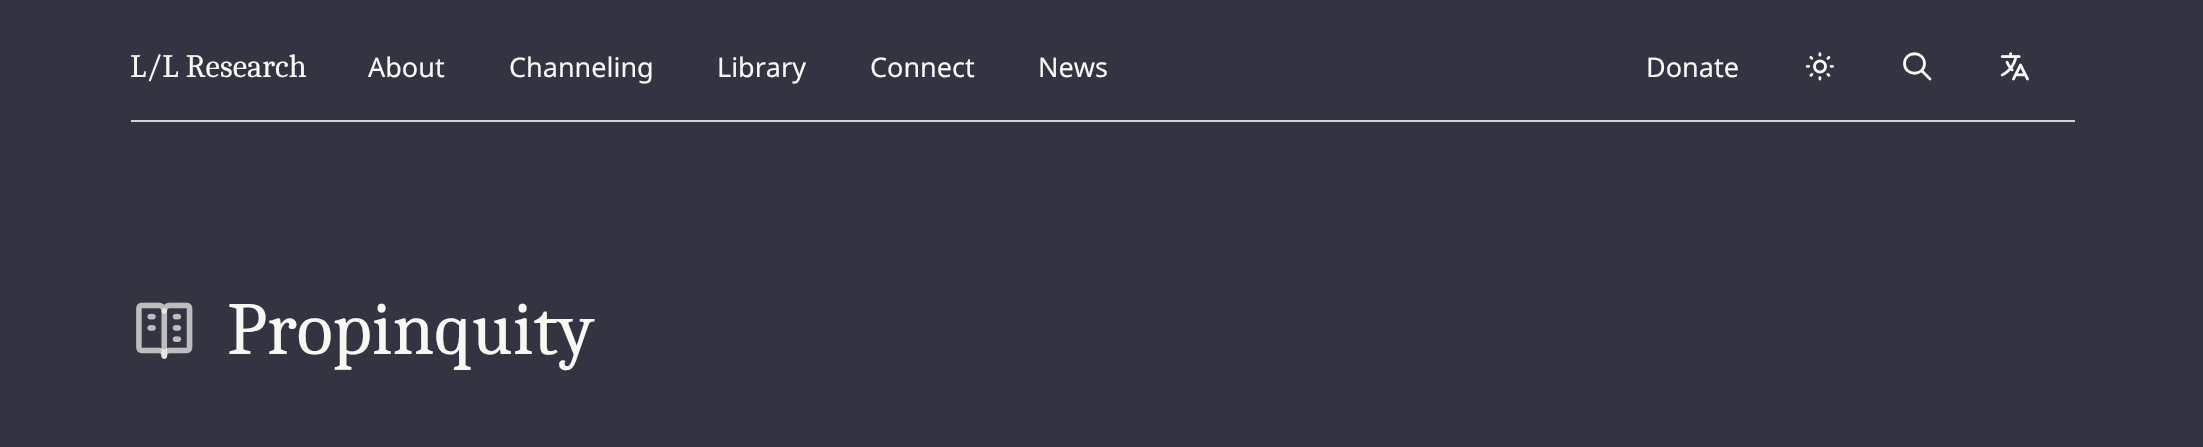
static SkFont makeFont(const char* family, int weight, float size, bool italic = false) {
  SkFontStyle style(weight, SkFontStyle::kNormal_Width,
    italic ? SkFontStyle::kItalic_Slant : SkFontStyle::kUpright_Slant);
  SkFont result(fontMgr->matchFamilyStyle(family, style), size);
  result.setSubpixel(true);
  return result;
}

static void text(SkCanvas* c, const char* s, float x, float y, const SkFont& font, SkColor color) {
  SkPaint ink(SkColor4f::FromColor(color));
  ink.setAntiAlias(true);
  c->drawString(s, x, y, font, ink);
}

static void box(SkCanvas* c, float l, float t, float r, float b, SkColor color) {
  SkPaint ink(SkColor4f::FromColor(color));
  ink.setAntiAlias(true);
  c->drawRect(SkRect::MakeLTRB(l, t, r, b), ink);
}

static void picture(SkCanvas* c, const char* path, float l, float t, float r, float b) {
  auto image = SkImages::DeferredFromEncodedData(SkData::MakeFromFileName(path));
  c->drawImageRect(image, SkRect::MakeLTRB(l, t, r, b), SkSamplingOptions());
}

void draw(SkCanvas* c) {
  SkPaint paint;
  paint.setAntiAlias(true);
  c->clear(0xff323442);
  box(c, 131, 120, 2075, 122, 0xffd1d5db);
  SkFont face1 = makeFont("Caladea", 400, 32.5f);
  text(c, "L/L Research", 130, 77, face1, 0xfff8f8f2);
  SkFont face2 = makeFont("Noto Sans", 400, 27);
  text(c, "About", 368, 77, face2, 0xfff8f8f2);
  text(c, "Channeling", 509, 77, face2, 0xfff8f8f2);
  text(c, "Library", 717, 77, face2, 0xfff8f8f2);
  text(c, "Connect", 870, 77, face2, 0xfff8f8f2);
  text(c, "News", 1038, 77, face2, 0xfff8f8f2);
  text(c, "Donate", 1646, 77, face2, 0xfff8f8f2);
  picture(c, "img_01.png", 1805, 52, 1834, 81);
  paint.setStyle(SkPaint::kStroke_Style);
  paint.setStrokeWidth(2.8f);
  paint.setStrokeCap(SkPaint::kRound_Cap);
  paint.setStrokeJoin(SkPaint::kRound_Join);
  paint.setColor(0xfff8f8f2);
  c->drawPath(SkPathBuilder().moveTo(1930, 79).lineTo(1921.5f, 70.5f).moveTo(1924.5f, 63.5f).cubicTo(1924.5f, 76.5f, 1904.5f, 76.5f, 1904.5f, 63.5f).cubicTo(1904.5f, 50.5f, 1924.5f, 50.5f, 1924.5f, 63.5f).close().detach(), paint);
  picture(c, "img_02.png", 2000, 52, 2029, 81);
  picture(c, "img_03.png", 136, 302, 193, 359);
  SkFont face3 = makeFont("Caladea", 400, 75);
  text(c, "Propinquity", 227, 354, face3, 0xfff8f8f2);
}
